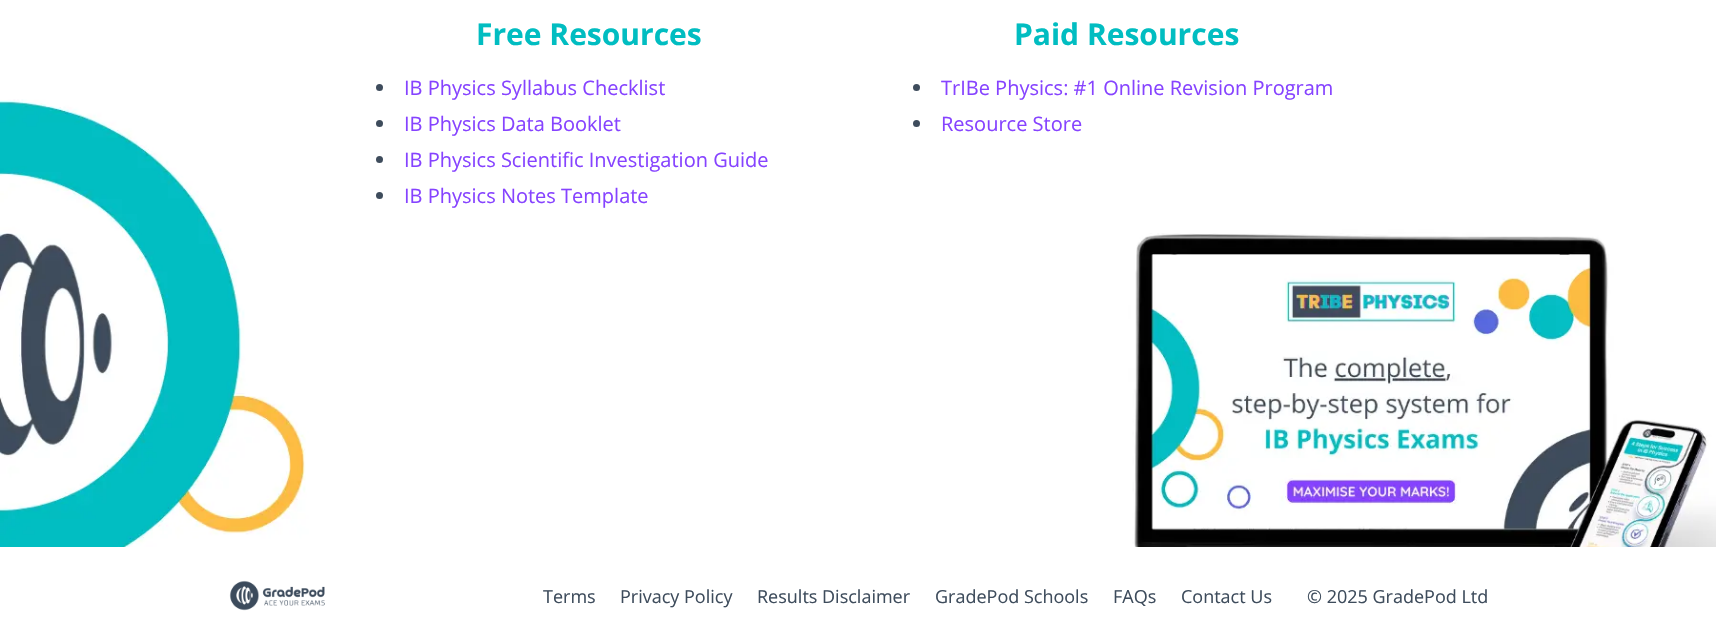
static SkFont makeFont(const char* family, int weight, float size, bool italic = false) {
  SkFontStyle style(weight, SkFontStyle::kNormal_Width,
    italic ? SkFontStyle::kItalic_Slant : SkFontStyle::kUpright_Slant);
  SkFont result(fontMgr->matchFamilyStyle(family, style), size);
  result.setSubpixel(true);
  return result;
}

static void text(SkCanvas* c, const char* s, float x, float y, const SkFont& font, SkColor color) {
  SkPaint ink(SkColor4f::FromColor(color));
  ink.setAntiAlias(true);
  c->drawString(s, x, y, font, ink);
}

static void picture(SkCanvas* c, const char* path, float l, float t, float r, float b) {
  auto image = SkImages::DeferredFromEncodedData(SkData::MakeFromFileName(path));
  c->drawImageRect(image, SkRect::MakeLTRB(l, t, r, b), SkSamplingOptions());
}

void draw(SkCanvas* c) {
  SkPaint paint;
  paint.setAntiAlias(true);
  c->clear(0xffffffff);
  picture(c, "img_01.png", 0, 99, 1716, 547);
  SkFont face1 = makeFont("Open Sans", 700, 30);
  text(c, "Free Resources", 476, 45, face1, 0xff01bdc1);
  paint.setColor(0xff3e4c5c);
  c->drawCircle(379.5f, 87.5f, 3.5f, paint);
  SkFont face2 = makeFont("Open Sans", 400, 20);
  text(c, "IB Physics Syllabus Checklist", 404, 95, face2, 0xff8643ff);
  c->drawCircle(379.5f, 123.5f, 3.5f, paint);
  text(c, "IB Physics Data Booklet", 404, 131, face2, 0xff8643ff);
  c->drawCircle(379.5f, 159.5f, 3.5f, paint);
  text(c, "IB Physics Scientific Investigation Guide", 404, 167, face2, 0xff8643ff);
  c->drawCircle(379.5f, 195.5f, 3.5f, paint);
  text(c, "IB Physics Notes Template", 404, 203, face2, 0xff8643ff);
  text(c, "Paid Resources", 1014, 45, face1, 0xff01bdc1);
  c->drawCircle(916.5f, 87.5f, 3.5f, paint);
  text(c, "TrIBe Physics: #1 Online Revision Program", 941, 95, face2, 0xff8643ff);
  c->drawCircle(916.5f, 123.5f, 3.5f, paint);
  text(c, "Resource Store", 941, 131, face2, 0xff8643ff);
  picture(c, "img_02.png", 229, 580, 325, 611);
  SkFont face3 = makeFont("Open Sans", 400, 18);
  text(c, "Terms", 543, 603, face3, 0xff3e4c5c);
  text(c, "Privacy Policy", 620, 603, face3, 0xff3e4c5c);
  text(c, "Results Disclaimer", 757, 603, face3, 0xff3e4c5c);
  text(c, "GradePod Schools", 935, 603, face3, 0xff3e4c5c);
  text(c, "FAQs", 1113, 603, face3, 0xff3e4c5c);
  text(c, "Contact Us", 1181, 603, face3, 0xff3e4c5c);
  text(c, "© 2025 GradePod Ltd", 1307, 603, face3, 0xff3e4c5c);
}
